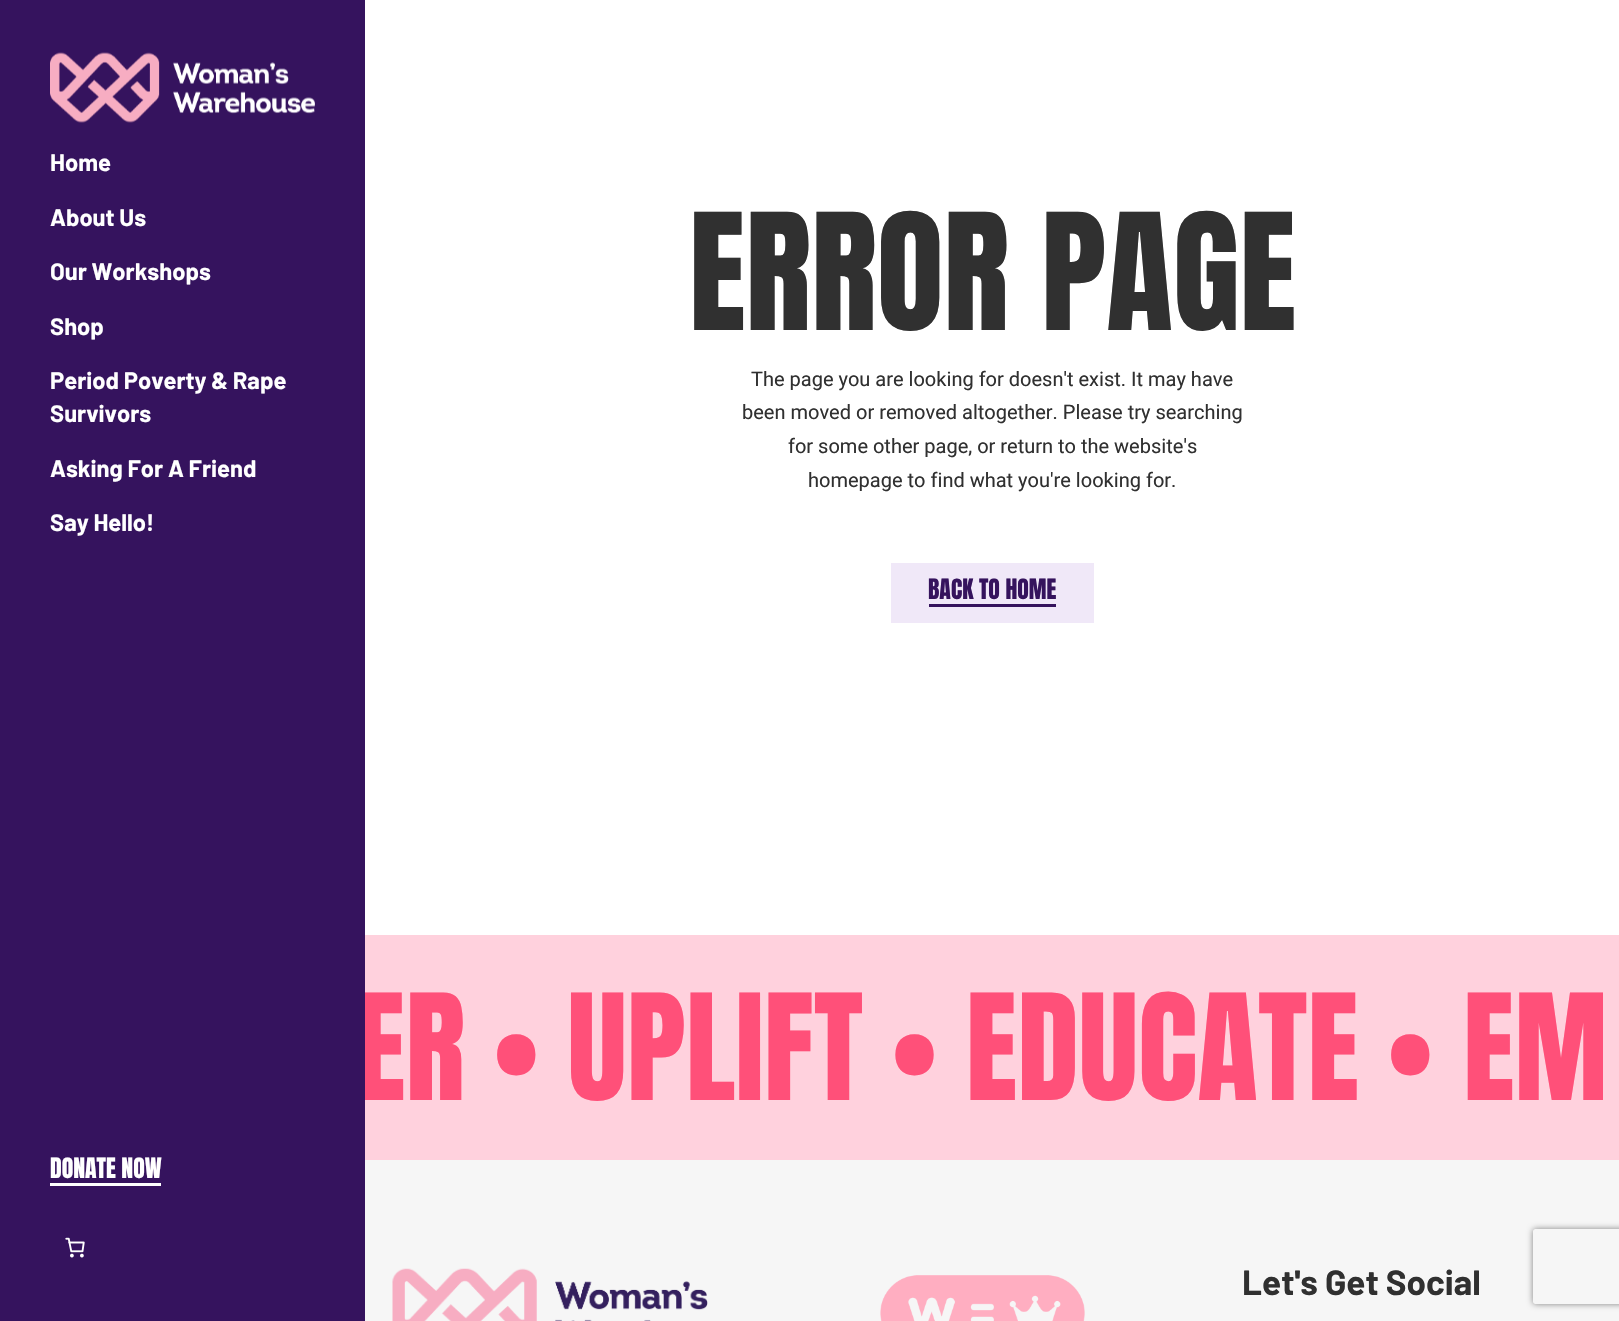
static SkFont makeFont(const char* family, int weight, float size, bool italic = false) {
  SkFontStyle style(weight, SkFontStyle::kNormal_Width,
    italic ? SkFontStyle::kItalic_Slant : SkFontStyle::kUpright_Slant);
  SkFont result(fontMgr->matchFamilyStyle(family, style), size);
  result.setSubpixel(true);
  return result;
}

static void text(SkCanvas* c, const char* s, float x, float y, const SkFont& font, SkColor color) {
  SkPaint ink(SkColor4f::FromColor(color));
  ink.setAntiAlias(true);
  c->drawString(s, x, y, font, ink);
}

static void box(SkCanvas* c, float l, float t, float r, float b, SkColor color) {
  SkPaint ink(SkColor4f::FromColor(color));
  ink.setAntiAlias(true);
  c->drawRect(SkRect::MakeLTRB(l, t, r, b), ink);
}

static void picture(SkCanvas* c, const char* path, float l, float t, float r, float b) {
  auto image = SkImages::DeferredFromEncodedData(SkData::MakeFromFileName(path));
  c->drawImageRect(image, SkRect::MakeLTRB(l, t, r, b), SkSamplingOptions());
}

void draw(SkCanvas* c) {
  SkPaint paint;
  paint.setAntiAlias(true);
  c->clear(0xffffffff);
  box(c, 365, 935, 1619, 1160, 0xffffd1dd);
  SkFont face1 = makeFont("Anton", 400, 125);
  text(c, "ER • UPLIFT • EDUCATE •", 354, 1100, face1, 0xffff5079);
  box(c, 0, 0, 365, 1321, 0xff35135e);
  picture(c, "img_01.png", 50, 52, 315, 123);
  SkFont face2 = makeFont("Barlow", 700, 23.75f);
  text(c, "Home", 50, 171, face2, 0xffffffff);
  text(c, "About Us", 50, 226, face2, 0xffffffff);
  text(c, "Our Workshops", 50, 280, face2, 0xffffffff);
  text(c, "Shop", 50, 335, face2, 0xffffffff);
  text(c, "Period Poverty & Rape", 50, 389, face2, 0xffffffff);
  text(c, "Survivors", 50, 422, face2, 0xffffffff);
  text(c, "Asking For A Friend", 50, 477, face2, 0xffffffff);
  text(c, "Say Hello!", 50, 531, face2, 0xffffffff);
  SkFont face3 = makeFont("Anton", 400, 23.75f);
  text(c, "DONATE NOW", 50, 1178, face3, 0xffffffff);
  box(c, 50, 1183, 161, 1186, 0xffffffff);
  picture(c, "img_02.png", 65, 1237, 85, 1258);
  SkFont face4 = makeFont("Anton", 400, 137.5f);
  text(c, "ERROR PAGE", 689, 330, face4, 0xff303030);
  SkFont face5 = makeFont("Heebo", 400, 20);
  text(c, "The page you are looking for doesn't exist. It may have", 751, 386, face5, 0xff303030);
  text(c, "been moved or removed altogether. Please try searching", 742, 419, face5, 0xff303030);
  text(c, "for some other page, or return to the website's", 788, 453, face5, 0xff303030);
  text(c, "homepage to find what you're looking for.", 808, 487, face5, 0xff303030);
  box(c, 891, 563, 1094, 623, 0xfff0e8f8);
  text(c, "BACK TO HOME", 928, 599, face3, 0xff35135d);
  box(c, 929, 604, 1056, 607, 0xff35135d);
  text(c, "EM", 1463, 1100, face1, 0xffff5079);
  box(c, 365, 1160, 1619, 1321, 0xfff6f6f6);
  picture(c, "img_03.png", 392, 1268, 708, 1321);
  picture(c, "img_04.png", 880, 1275, 1085, 1321);
  SkFont face6 = makeFont("Barlow", 700, 35);
  text(c, "Let's Get Social", 1242, 1295, face6, 0xff303030);
  c->save();
  c->clipPath(SkPathBuilder(SkPathFillType::kEvenOdd).moveTo(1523, 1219).lineTo(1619, 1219).lineTo(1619, 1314).lineTo(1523, 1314).close().moveTo(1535.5f, 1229).lineTo(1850.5f, 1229).cubicTo(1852, 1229, 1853, 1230, 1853, 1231.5f).lineTo(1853, 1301.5f).cubicTo(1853, 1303, 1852, 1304, 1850.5f, 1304).lineTo(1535.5f, 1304).cubicTo(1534, 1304, 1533, 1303, 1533, 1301.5f).lineTo(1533, 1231.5f).cubicTo(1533, 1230, 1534, 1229, 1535.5f, 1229).close().detach(), true);
  paint.setColor(0xff808080);
  paint.setMaskFilter(SkMaskFilter::MakeBlur(kNormal_SkBlurStyle, 3));
  c->drawRoundRect(SkRect::MakeLTRB(1533, 1229, 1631, 1304), 2.5f, 2.5f, paint);
  paint.setMaskFilter(nullptr);
  c->restore();
}
